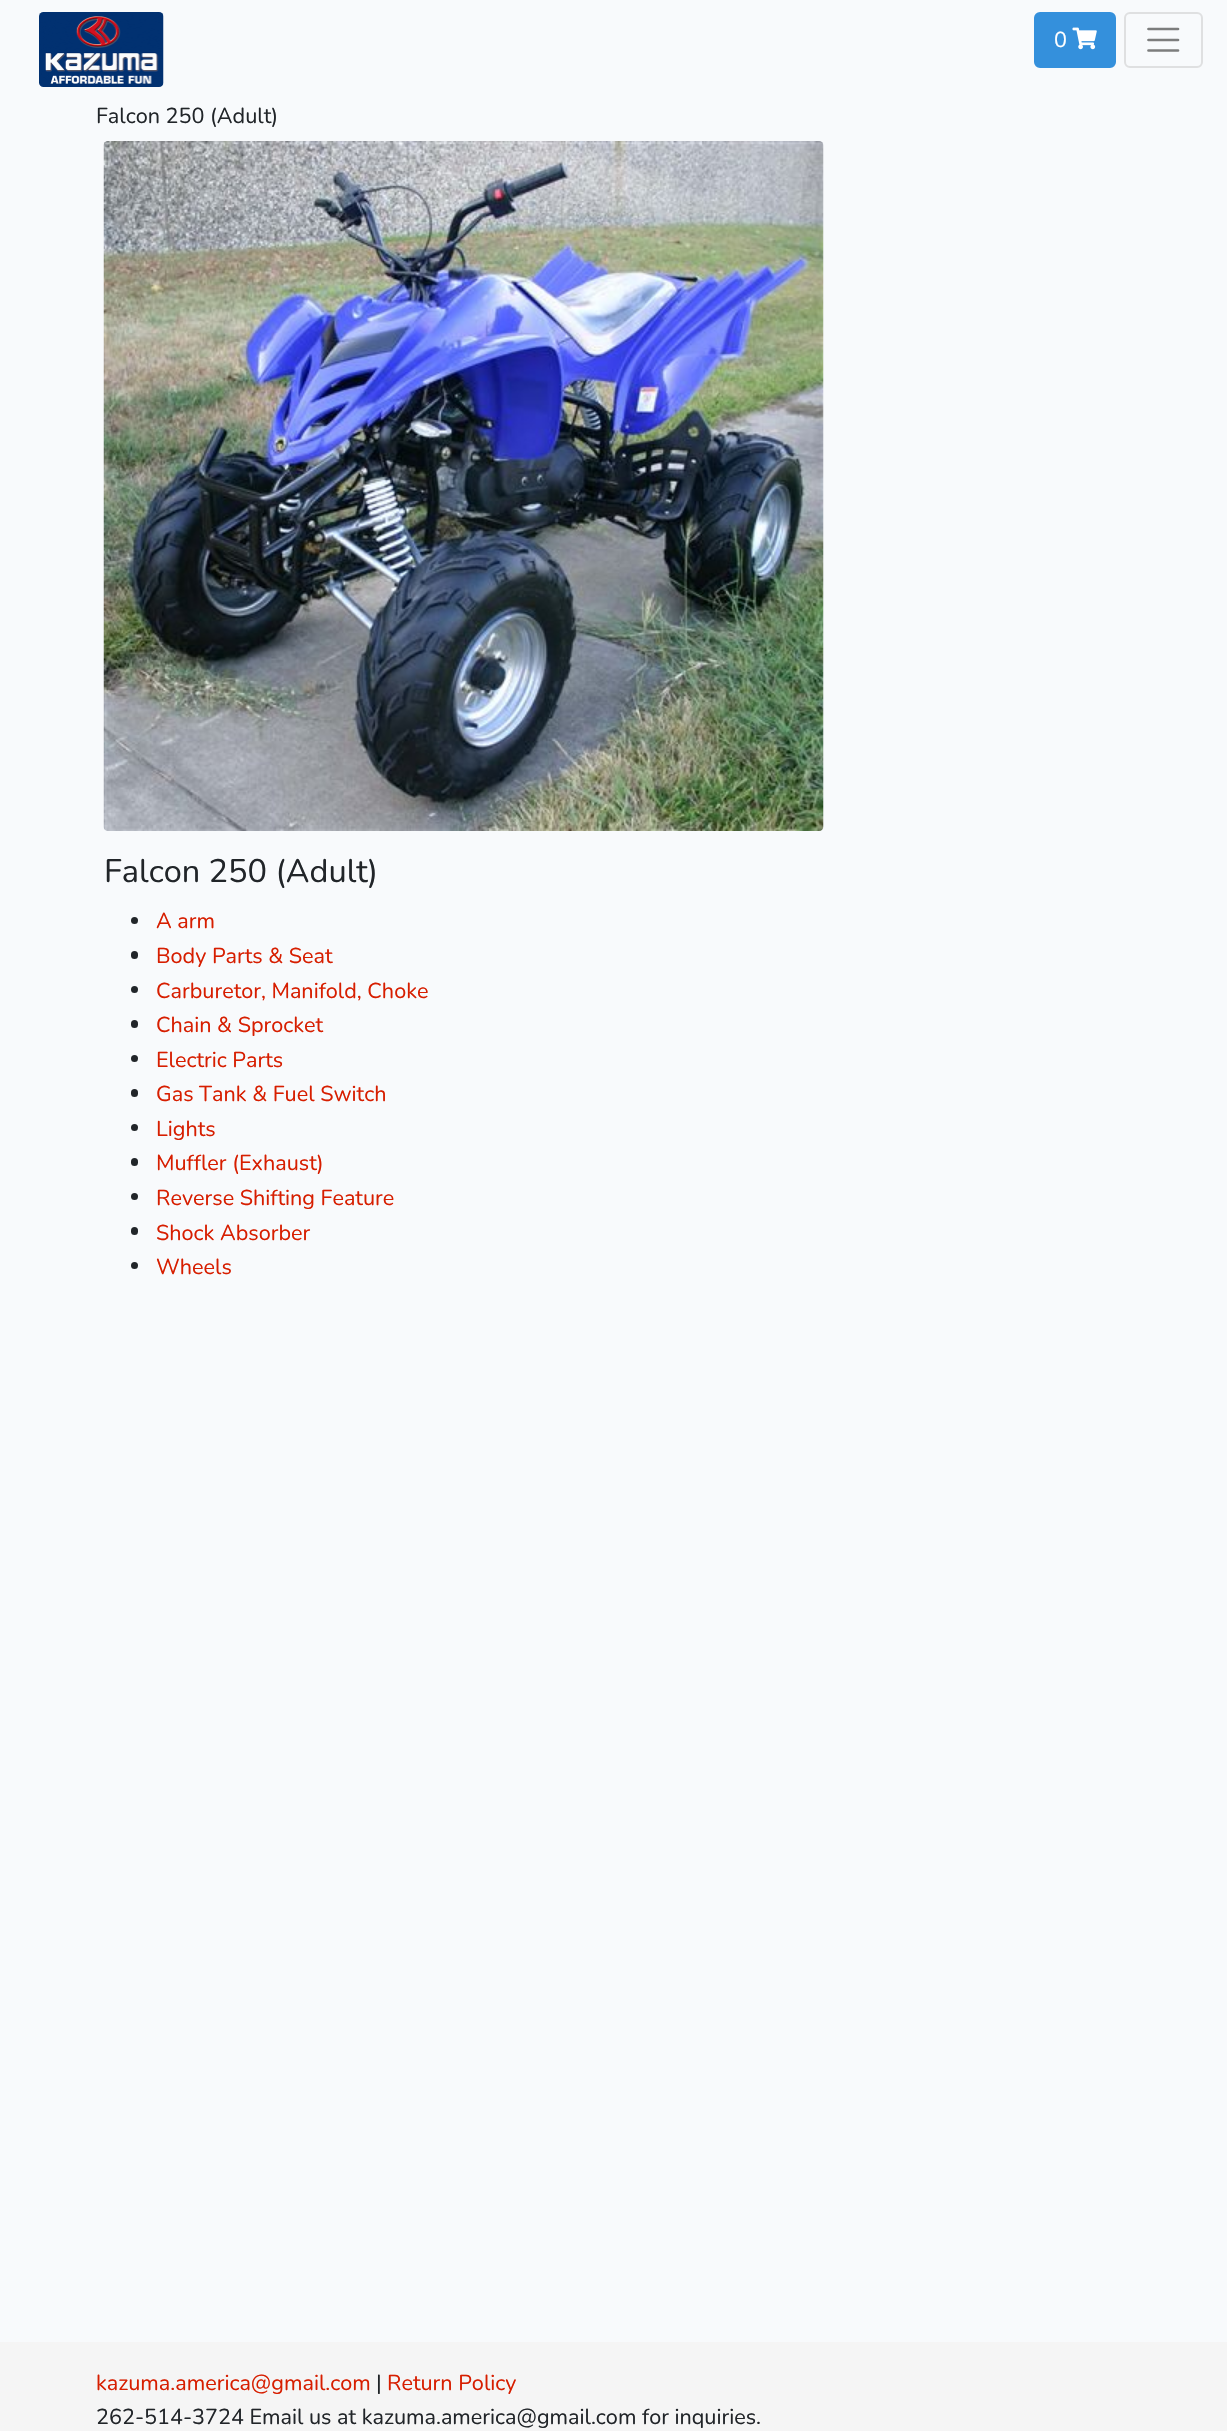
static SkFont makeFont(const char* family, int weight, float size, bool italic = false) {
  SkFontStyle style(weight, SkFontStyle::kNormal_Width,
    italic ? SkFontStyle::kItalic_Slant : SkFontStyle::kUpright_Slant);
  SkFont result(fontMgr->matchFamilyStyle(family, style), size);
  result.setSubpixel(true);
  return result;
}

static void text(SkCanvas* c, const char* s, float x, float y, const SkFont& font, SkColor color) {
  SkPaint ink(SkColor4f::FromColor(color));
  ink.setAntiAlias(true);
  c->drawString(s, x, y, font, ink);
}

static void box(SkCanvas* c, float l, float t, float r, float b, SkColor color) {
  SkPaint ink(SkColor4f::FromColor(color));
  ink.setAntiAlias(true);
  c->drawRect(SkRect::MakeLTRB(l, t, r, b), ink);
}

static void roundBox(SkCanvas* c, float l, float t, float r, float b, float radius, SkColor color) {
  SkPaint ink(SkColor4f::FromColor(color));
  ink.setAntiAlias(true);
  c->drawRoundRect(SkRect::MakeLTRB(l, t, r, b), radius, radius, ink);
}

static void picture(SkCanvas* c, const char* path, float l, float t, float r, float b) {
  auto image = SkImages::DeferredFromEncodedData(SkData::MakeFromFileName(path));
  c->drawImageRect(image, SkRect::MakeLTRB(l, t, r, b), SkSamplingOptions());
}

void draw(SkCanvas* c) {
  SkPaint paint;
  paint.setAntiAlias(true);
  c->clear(0xfff8fafc);
  picture(c, "img_01.png", 39, 12, 164, 87);
  paint.setColor(0xff3490dc);
  c->drawRoundRect(SkRect::MakeLTRB(1035, 13, 1115, 67), 5, 5, paint);
  paint.setStyle(SkPaint::kStroke_Style);
  paint.setStrokeWidth(2);
  c->drawRoundRect(SkRect::MakeLTRB(1035, 13, 1115, 67), 5, 5, paint);
  SkFont face1 = makeFont("Nunito", 200, 21.6f);
  text(c, "0", 1054, 47, face1, 0xffffffff);
  picture(c, "img_02.png", 1072, 27, 1097, 50);
  paint.setColor(0xffdfe0e1);
  c->drawRoundRect(SkRect::MakeLTRB(1125, 13, 1202, 67), 5, 5, paint);
  paint.setStrokeWidth(2.7f);
  paint.setStrokeCap(SkPaint::kRound_Cap);
  paint.setColor(0xff7c7d7d);
  c->drawPath(SkPathBuilder().moveTo(1148.5f, 29).lineTo(1178, 29).moveTo(1148.5f, 40).lineTo(1178, 40).moveTo(1148.5f, 50.5f).lineTo(1178, 50.5f).detach(), paint);
  text(c, "Falcon 250 (Adult)", 96, 123, face1, 0xff212529);
  picture(c, "img_03.png", 103, 141, 824, 831);
  SkFont face2 = makeFont("Nunito", 200, 32.5f);
  text(c, "Falcon 250 (Adult)", 104, 882, face2, 0xff212529);
  paint.setStyle(SkPaint::kFill_Style);
  paint.setColor(0xff212529);
  c->drawCircle(134.5f, 920.5f, 3.5f, paint);
  text(c, "A arm", 156, 928, face1, 0xffd71e00);
  roundBox(c, 131, 951, 138, 959, 3.5f, 0xff212529);
  text(c, "Body Parts & Seat", 156, 963, face1, 0xffd71e00);
  c->drawCircle(134.5f, 989.5f, 3.5f, paint);
  text(c, "Carburetor, Manifold, Choke", 156, 998, face1, 0xffd71e00);
  roundBox(c, 131, 1020, 138, 1028, 3.5f, 0xff212529);
  text(c, "Chain & Sprocket", 156, 1032, face1, 0xffd71e00);
  c->drawCircle(134.5f, 1058.5f, 3.5f, paint);
  text(c, "Electric Parts", 156, 1067, face1, 0xffd71e00);
  roundBox(c, 131, 1089, 138, 1097, 3.5f, 0xff212529);
  text(c, "Gas Tank & Fuel Switch", 156, 1101, face1, 0xffd71e00);
  c->drawCircle(134.5f, 1127.5f, 3.5f, paint);
  text(c, "Lights", 156, 1136, face1, 0xffd71e00);
  roundBox(c, 131, 1158, 138, 1166, 3.5f, 0xff212529);
  text(c, "Muffler (Exhaust)", 156, 1170, face1, 0xffd71e00);
  c->drawCircle(134.5f, 1196.5f, 3.5f, paint);
  text(c, "Reverse Shifting Feature", 156, 1205, face1, 0xffd71e00);
  roundBox(c, 131, 1227, 138, 1235, 3.5f, 0xff212529);
  text(c, "Shock Absorber", 156, 1240, face1, 0xffd71e00);
  c->drawCircle(134.5f, 1265.5f, 3.5f, paint);
  text(c, "Wheels", 156, 1274, face1, 0xffd71e00);
  box(c, 0, 2342, 1227, 2431, 0xfff5f5f5);
  text(c, "kazuma.america@gmail.com", 96, 2390, face1, 0xffd71e00);
  text(c, "|", 376, 2390, face1, 0xff212529);
  text(c, "Return Policy", 387, 2390, face1, 0xffd71e00);
  text(c, "262-514-3724 Email us at kazuma.america@gmail.com for inquiries.", 96, 2424, face1, 0xff212529);
}
